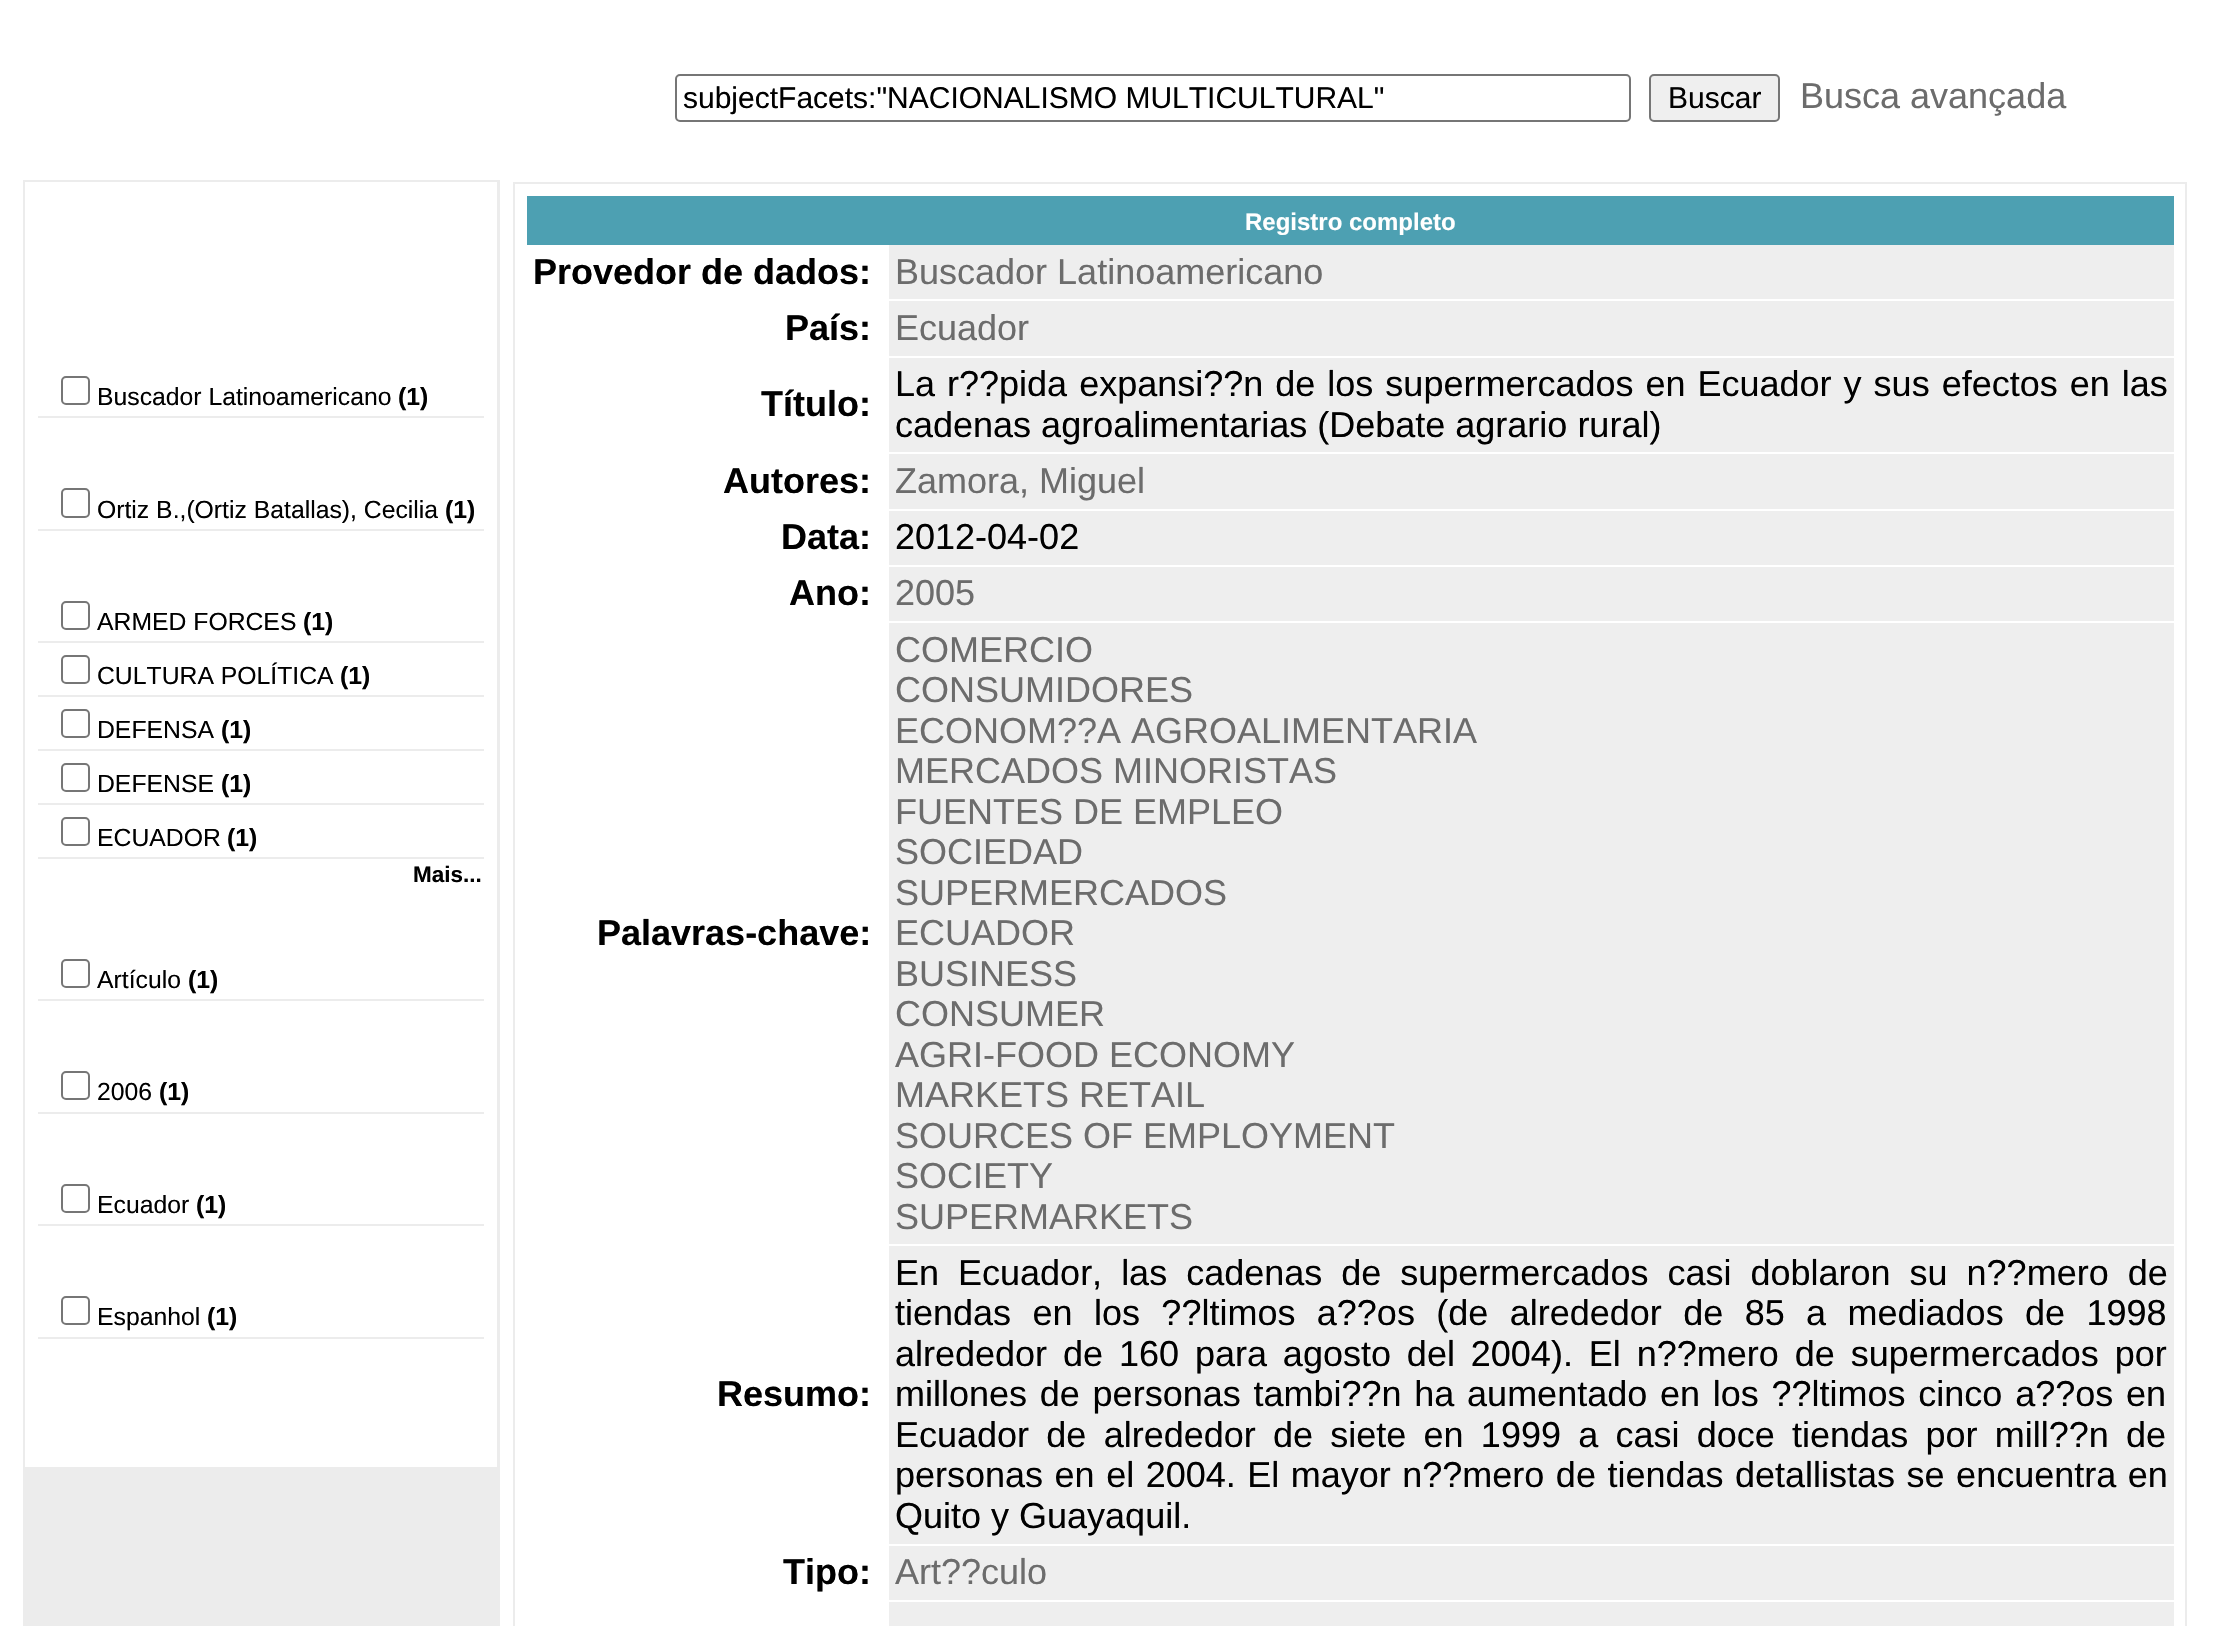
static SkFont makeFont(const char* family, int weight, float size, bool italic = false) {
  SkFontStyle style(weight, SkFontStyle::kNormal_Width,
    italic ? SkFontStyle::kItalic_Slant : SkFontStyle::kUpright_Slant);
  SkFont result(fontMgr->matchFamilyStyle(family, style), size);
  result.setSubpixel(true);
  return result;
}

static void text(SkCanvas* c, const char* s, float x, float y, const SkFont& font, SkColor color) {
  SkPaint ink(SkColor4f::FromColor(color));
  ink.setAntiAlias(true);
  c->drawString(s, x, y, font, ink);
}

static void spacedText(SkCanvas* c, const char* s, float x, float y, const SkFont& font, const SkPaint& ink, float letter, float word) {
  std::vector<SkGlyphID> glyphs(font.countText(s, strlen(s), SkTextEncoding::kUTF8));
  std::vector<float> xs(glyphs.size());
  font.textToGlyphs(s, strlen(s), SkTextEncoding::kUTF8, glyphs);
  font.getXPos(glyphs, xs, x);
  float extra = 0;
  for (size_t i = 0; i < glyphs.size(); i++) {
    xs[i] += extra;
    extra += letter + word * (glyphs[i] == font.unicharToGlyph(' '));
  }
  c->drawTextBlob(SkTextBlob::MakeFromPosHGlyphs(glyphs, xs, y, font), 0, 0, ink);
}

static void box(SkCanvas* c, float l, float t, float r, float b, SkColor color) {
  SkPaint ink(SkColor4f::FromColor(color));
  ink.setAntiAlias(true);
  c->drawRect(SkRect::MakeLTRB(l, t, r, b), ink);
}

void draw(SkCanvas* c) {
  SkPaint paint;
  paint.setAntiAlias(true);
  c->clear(0xffffffff);
  paint.setStyle(SkPaint::kStroke_Style);
  paint.setStrokeWidth(2);
  paint.setColor(0xff767676);
  c->drawRoundRect(SkRect::MakeLTRB(676, 75, 1630, 121), 4, 4, paint);
  SkFont face1 = makeFont("Liberation Sans", 400, 30);
  text(c, "subjectFacets:\"NACIONALISMO MULTICULTURAL\"", 683, 108, face1, 0xff000000);
  paint.setStyle(SkPaint::kFill_Style);
  paint.setColor(0xffefefef);
  c->drawRoundRect(SkRect::MakeLTRB(1650, 75, 1779, 121), 4, 4, paint);
  paint.setStyle(SkPaint::kStroke_Style);
  paint.setColor(0xff767676);
  c->drawRoundRect(SkRect::MakeLTRB(1650, 75, 1779, 121), 4, 4, paint);
  text(c, "Buscar", 1668, 108, face1, 0xff000000);
  SkFont face2 = makeFont("Liberation Sans", 400, 36);
  text(c, "Busca avançada", 1800, 108, face2, 0xff6c6c6c);
  box(c, 23, 180, 500, 1626, 0xffececec);
  box(c, 25, 182, 497, 1467, 0xffffffff);
  box(c, 38, 416, 484, 418, 0xffececec);
  c->drawRoundRect(SkRect::MakeLTRB(62, 377, 89, 404), 4, 4, paint);
  SkFont face3 = makeFont("Liberation Sans", 400, 24.75f);
  text(c, "Buscador Latinoamericano", 97, 405, face3, 0xff000000);
  SkFont face4 = makeFont("Liberation Sans", 700, 24.75f);
  text(c, "(1)", 398, 405, face4, 0xff000000);
  box(c, 38, 529, 484, 531, 0xffececec);
  c->drawRoundRect(SkRect::MakeLTRB(62, 489, 89, 517), 4, 4, paint);
  text(c, "Ortiz B.,(Ortiz Batallas), Cecilia", 97, 518, face3, 0xff000000);
  text(c, "(1)", 445, 518, face4, 0xff000000);
  box(c, 38, 641, 484, 643, 0xffececec);
  c->drawRoundRect(SkRect::MakeLTRB(62, 602, 89, 629), 4, 4, paint);
  text(c, "ARMED FORCES", 97, 630, face3, 0xff000000);
  text(c, "(1)", 303, 630, face4, 0xff000000);
  box(c, 38, 695, 484, 697, 0xffececec);
  c->drawRoundRect(SkRect::MakeLTRB(62, 656, 89, 683), 4, 4, paint);
  text(c, "CULTURA POLÍTICA", 97, 684, face3, 0xff000000);
  text(c, "(1)", 340, 684, face4, 0xff000000);
  box(c, 38, 749, 484, 751, 0xffececec);
  c->drawRoundRect(SkRect::MakeLTRB(62, 710, 89, 737), 4, 4, paint);
  text(c, "DEFENSA", 97, 738, face3, 0xff000000);
  text(c, "(1)", 221, 738, face4, 0xff000000);
  box(c, 38, 803, 484, 805, 0xffececec);
  c->drawRoundRect(SkRect::MakeLTRB(62, 764, 89, 791), 4, 4, paint);
  text(c, "DEFENSE", 97, 792, face3, 0xff000000);
  text(c, "(1)", 221, 792, face4, 0xff000000);
  box(c, 38, 857, 484, 859, 0xffececec);
  c->drawRoundRect(SkRect::MakeLTRB(62, 818, 89, 845), 4, 4, paint);
  text(c, "ECUADOR", 97, 846, face3, 0xff000000);
  text(c, "(1)", 227, 846, face4, 0xff000000);
  SkFont face5 = makeFont("Liberation Sans", 700, 22.5f);
  text(c, "Mais...", 413, 882, face5, 0xff000000);
  box(c, 38, 999, 484, 1001, 0xffececec);
  c->drawRoundRect(SkRect::MakeLTRB(62, 960, 89, 987), 4, 4, paint);
  text(c, "Artículo", 97, 988, face3, 0xff000000);
  text(c, "(1)", 188, 988, face4, 0xff000000);
  box(c, 38, 1112, 484, 1114, 0xffececec);
  c->drawRoundRect(SkRect::MakeLTRB(62, 1072, 89, 1099), 4, 4, paint);
  text(c, "2006", 97, 1100, face3, 0xff000000);
  text(c, "(1)", 159, 1100, face4, 0xff000000);
  box(c, 38, 1224, 484, 1226, 0xffececec);
  c->drawRoundRect(SkRect::MakeLTRB(62, 1185, 89, 1212), 4, 4, paint);
  text(c, "Ecuador", 97, 1213, face3, 0xff000000);
  text(c, "(1)", 196, 1213, face4, 0xff000000);
  box(c, 38, 1337, 484, 1339, 0xffececec);
  c->drawRoundRect(SkRect::MakeLTRB(62, 1297, 89, 1324), 4, 4, paint);
  text(c, "Espanhol", 97, 1325, face3, 0xff000000);
  text(c, "(1)", 207, 1325, face4, 0xff000000);
  paint.setColor(0xffececec);
  c->drawRect(SkRect::MakeLTRB(514, 183, 2186, 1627), paint);
  box(c, 527, 196, 2174, 245, 0xff4da0b2);
  SkFont face6 = makeFont("Liberation Sans", 700, 24);
  text(c, "Registro completo", 1245, 230, face6, 0xffffffff);
  SkFont face7 = makeFont("Liberation Sans", 700, 36);
  text(c, "Provedor de dados:", 533, 284, face7, 0xff000000);
  box(c, 889, 245, 2174, 356, 0xffeeeeee);
  box(c, 889, 299, 2174, 301, 0xffffffff);
  text(c, "Buscador Latinoamericano", 895, 284, face2, 0xff6c6c6c);
  text(c, "País:", 785, 340, face7, 0xff000000);
  text(c, "Ecuador", 895, 340, face2, 0xff6c6c6c);
  text(c, "Título:", 761, 416, face7, 0xff000000);
  box(c, 889, 358, 2174, 509, 0xffeeeeee);
  box(c, 889, 452, 2174, 454, 0xffffffff);
  paint.setStyle(SkPaint::kFill_Style);
  paint.setColor(0xff000000);
  spacedText(c, "La r?\077pida expansi?\077n de los supermercados en Ecuador y sus efectos en las", 895, 396, face2, paint, 0, 2);
  text(c, "cadenas agroalimentarias (Debate agrario rural)", 895, 437, face2, 0xff000000);
  text(c, "Autores:", 723, 493, face7, 0xff000000);
  text(c, "Zamora, Miguel", 895, 493, face2, 0xff6c6c6c);
  text(c, "Data:", 781, 549, face7, 0xff000000);
  box(c, 889, 511, 2174, 565, 0xffeeeeee);
  text(c, "2012-04-02", 895, 549, face2, 0xff000000);
  text(c, "Ano:", 789, 605, face7, 0xff000000);
  box(c, 889, 567, 2174, 621, 0xffeeeeee);
  text(c, "2005", 895, 605, face2, 0xff6c6c6c);
  text(c, "Palavras-chave:", 597, 945, face7, 0xff000000);
  box(c, 889, 623, 2174, 1544, 0xffeeeeee);
  box(c, 889, 1244, 2174, 1246, 0xffffffff);
  text(c, "COMERCIO", 895, 662, face2, 0xff6c6c6c);
  text(c, "CONSUMIDORES", 895, 702, face2, 0xff6c6c6c);
  text(c, "ECONOM?\077A AGROALIMENTARIA", 895, 743, face2, 0xff6c6c6c);
  text(c, "MERCADOS MINORISTAS", 895, 783, face2, 0xff6c6c6c);
  text(c, "FUENTES DE EMPLEO", 895, 824, face2, 0xff6c6c6c);
  text(c, "SOCIEDAD", 895, 864, face2, 0xff6c6c6c);
  text(c, "SUPERMERCADOS", 895, 905, face2, 0xff6c6c6c);
  text(c, "ECUADOR", 895, 945, face2, 0xff6c6c6c);
  text(c, "BUSINESS", 895, 986, face2, 0xff6c6c6c);
  text(c, "CONSUMER", 895, 1026, face2, 0xff6c6c6c);
  text(c, "AGRI-FOOD ECONOMY", 895, 1067, face2, 0xff6c6c6c);
  text(c, "MARKETS RETAIL", 895, 1107, face2, 0xff6c6c6c);
  text(c, "SOURCES OF EMPLOYMENT", 895, 1148, face2, 0xff6c6c6c);
  text(c, "SOCIETY", 895, 1188, face2, 0xff6c6c6c);
  text(c, "SUPERMARKETS", 895, 1229, face2, 0xff6c6c6c);
  text(c, "Resumo:", 717, 1406, face7, 0xff000000);
  spacedText(c, "En Ecuador, las cadenas de supermercados casi doblaron su n?\077mero de", 895, 1285, face2, paint, 0, 9);
  spacedText(c, "tiendas en los ?\077ltimos a?\077os (de alrededor de 85 a mediados de 1998", 895, 1325, face2, paint, 0, 11.4f);
  spacedText(c, "alrededor de 160 para agosto del 2004). El n?\077mero de supermercados por", 895, 1366, face2, paint, 0, 5.9f);
  spacedText(c, "millones de personas tambi?\077n ha aumentado en los ?\077ltimos cinco a?\077os en", 895, 1406, face2, paint, 0, 2.75f);
  spacedText(c, "Ecuador de alrededor de siete en 1999 a casi doce tiendas por mill?\077n de", 895, 1447, face2, paint, 0, 7.25f);
  spacedText(c, "personas en el 2004. El mayor n?\077mero de tiendas detallistas se encuentra en", 895, 1487, face2, paint, 0, 1.5f);
  text(c, "Quito y Guayaquil.", 895, 1528, face2, 0xff000000);
  text(c, "Tipo:", 783, 1584, face7, 0xff000000);
  box(c, 889, 1546, 2174, 1600, 0xffeeeeee);
  text(c, "Art?\077culo", 895, 1584, face2, 0xff6c6c6c);
  box(c, 889, 1602, 2174, 1626, 0xffeeeeee);
}
